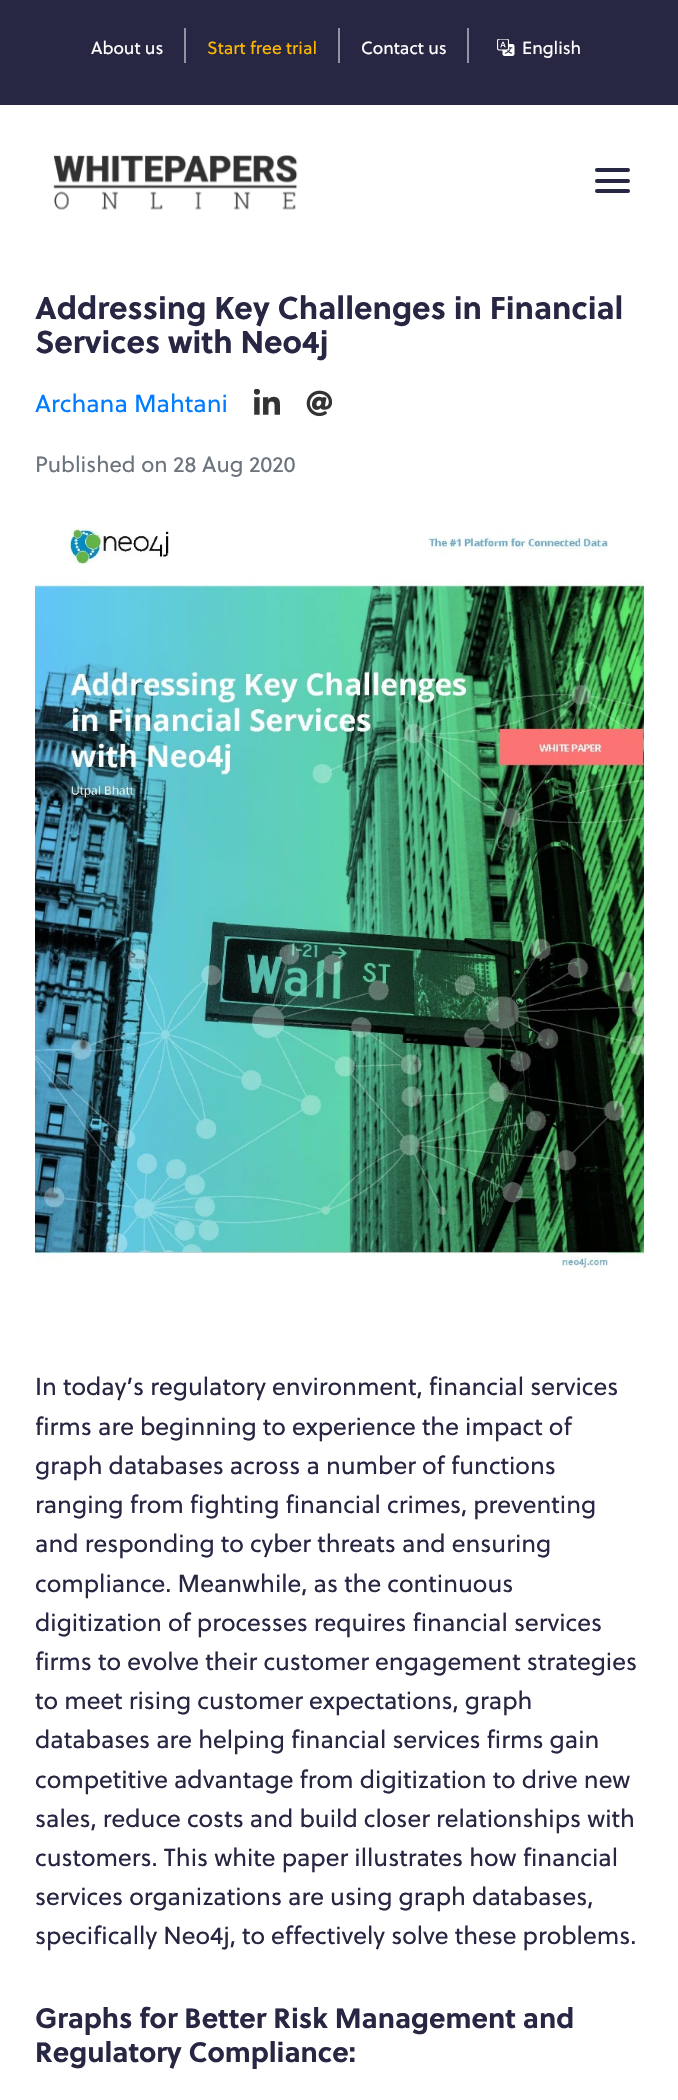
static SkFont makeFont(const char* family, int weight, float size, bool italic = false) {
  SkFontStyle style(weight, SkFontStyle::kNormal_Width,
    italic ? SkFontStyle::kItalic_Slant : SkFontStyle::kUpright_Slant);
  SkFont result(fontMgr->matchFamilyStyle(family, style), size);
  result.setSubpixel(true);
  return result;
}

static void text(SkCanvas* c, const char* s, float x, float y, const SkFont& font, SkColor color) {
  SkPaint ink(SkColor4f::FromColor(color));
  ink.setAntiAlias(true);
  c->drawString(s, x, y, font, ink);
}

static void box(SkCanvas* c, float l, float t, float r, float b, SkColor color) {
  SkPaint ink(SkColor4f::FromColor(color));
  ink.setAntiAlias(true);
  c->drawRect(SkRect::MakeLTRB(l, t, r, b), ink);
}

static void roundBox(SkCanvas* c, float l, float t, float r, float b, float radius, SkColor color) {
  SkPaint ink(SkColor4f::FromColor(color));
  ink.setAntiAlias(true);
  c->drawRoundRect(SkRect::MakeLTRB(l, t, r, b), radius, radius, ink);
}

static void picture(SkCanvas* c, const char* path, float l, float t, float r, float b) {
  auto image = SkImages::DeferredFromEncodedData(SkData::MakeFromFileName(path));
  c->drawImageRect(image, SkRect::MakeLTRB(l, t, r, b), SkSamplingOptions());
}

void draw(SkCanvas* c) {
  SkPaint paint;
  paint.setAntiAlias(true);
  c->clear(0xffffffff);
  box(c, 0, 0, 678, 105, 0xff272643);
  SkFont face1 = makeFont("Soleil", 400, 17.5f);
  text(c, "About us", 91, 54, face1, 0xffffffff);
  box(c, 184, 28, 186, 63, 0xff9393a1);
  text(c, "Start free trial", 207, 54, face1, 0xffffb800);
  box(c, 338, 28, 340, 63, 0xff9393a1);
  text(c, "Contact us", 361, 54, face1, 0xffffffff);
  box(c, 467, 28, 469, 63, 0xff9393a1);
  picture(c, "img_01.png", 497, 39, 515, 56);
  text(c, "English", 522, 54, face1, 0xffffffff);
  picture(c, "img_02.png", 53, 155, 298, 210);
  roundBox(c, 595, 179, 630, 183, 2, 0xff272643);
  roundBox(c, 595, 168, 630, 172, 2, 0xff272643);
  roundBox(c, 595, 189, 630, 193, 2, 0xff272643);
  SkFont face2 = makeFont("Soleil", 700, 31.5f);
  text(c, "Addressing Key Challenges in Financial", 35, 319, face2, 0xff272643);
  text(c, "Services with Neo4j", 35, 353, face2, 0xff272643);
  SkFont face3 = makeFont("Soleil", 400, 24.5f);
  text(c, "Archana Mahtani", 35, 412, face3, 0xff007bff);
  picture(c, "img_03.png", 254, 389, 280, 415);
  picture(c, "img_04.png", 306, 390, 333, 417);
  SkFont face4 = makeFont("Soleil", 400, 22);
  text(c, "Published on 28 Aug 2020", 35, 472, face4, 0xff6c757d);
  picture(c, "img_05.png", 35, 526, 644, 1270);
  text(c, "In today’s regulatory environment, financial services", 35, 1395, face3, 0xff272643);
  text(c, "firms are beginning to experience the impact of", 35, 1435, face3, 0xff272643);
  text(c, "graph databases across a number of functions", 35, 1474, face3, 0xff272643);
  text(c, "ranging from fighting financial crimes, preventing", 35, 1513, face3, 0xff272643);
  text(c, "and responding to cyber threats and ensuring", 35, 1552, face3, 0xff272643);
  text(c, "compliance. Meanwhile, as the continuous", 35, 1592, face3, 0xff272643);
  text(c, "digitization of processes requires financial services", 35, 1631, face3, 0xff272643);
  text(c, "firms to evolve their customer engagement strategies", 35, 1670, face3, 0xff272643);
  text(c, "to meet rising customer expectations, graph", 35, 1709, face3, 0xff272643);
  text(c, "databases are helping financial services firms gain", 35, 1748, face3, 0xff272643);
  text(c, "competitive advantage from digitization to drive new", 35, 1788, face3, 0xff272643);
  text(c, "sales, reduce costs and build closer relationships with", 35, 1827, face3, 0xff272643);
  text(c, "customers. This white paper illustrates how financial", 35, 1866, face3, 0xff272643);
  text(c, "services organizations are using graph databases,", 35, 1905, face3, 0xff272643);
  text(c, "specifically Neo4j, to effectively solve these problems.", 35, 1944, face3, 0xff272643);
  SkFont face5 = makeFont("Soleil", 700, 28);
  text(c, "Graphs for Better Risk Management and", 35, 2028, face5, 0xff272643);
  text(c, "Regulatory Compliance:", 35, 2062, face5, 0xff272643);
}
